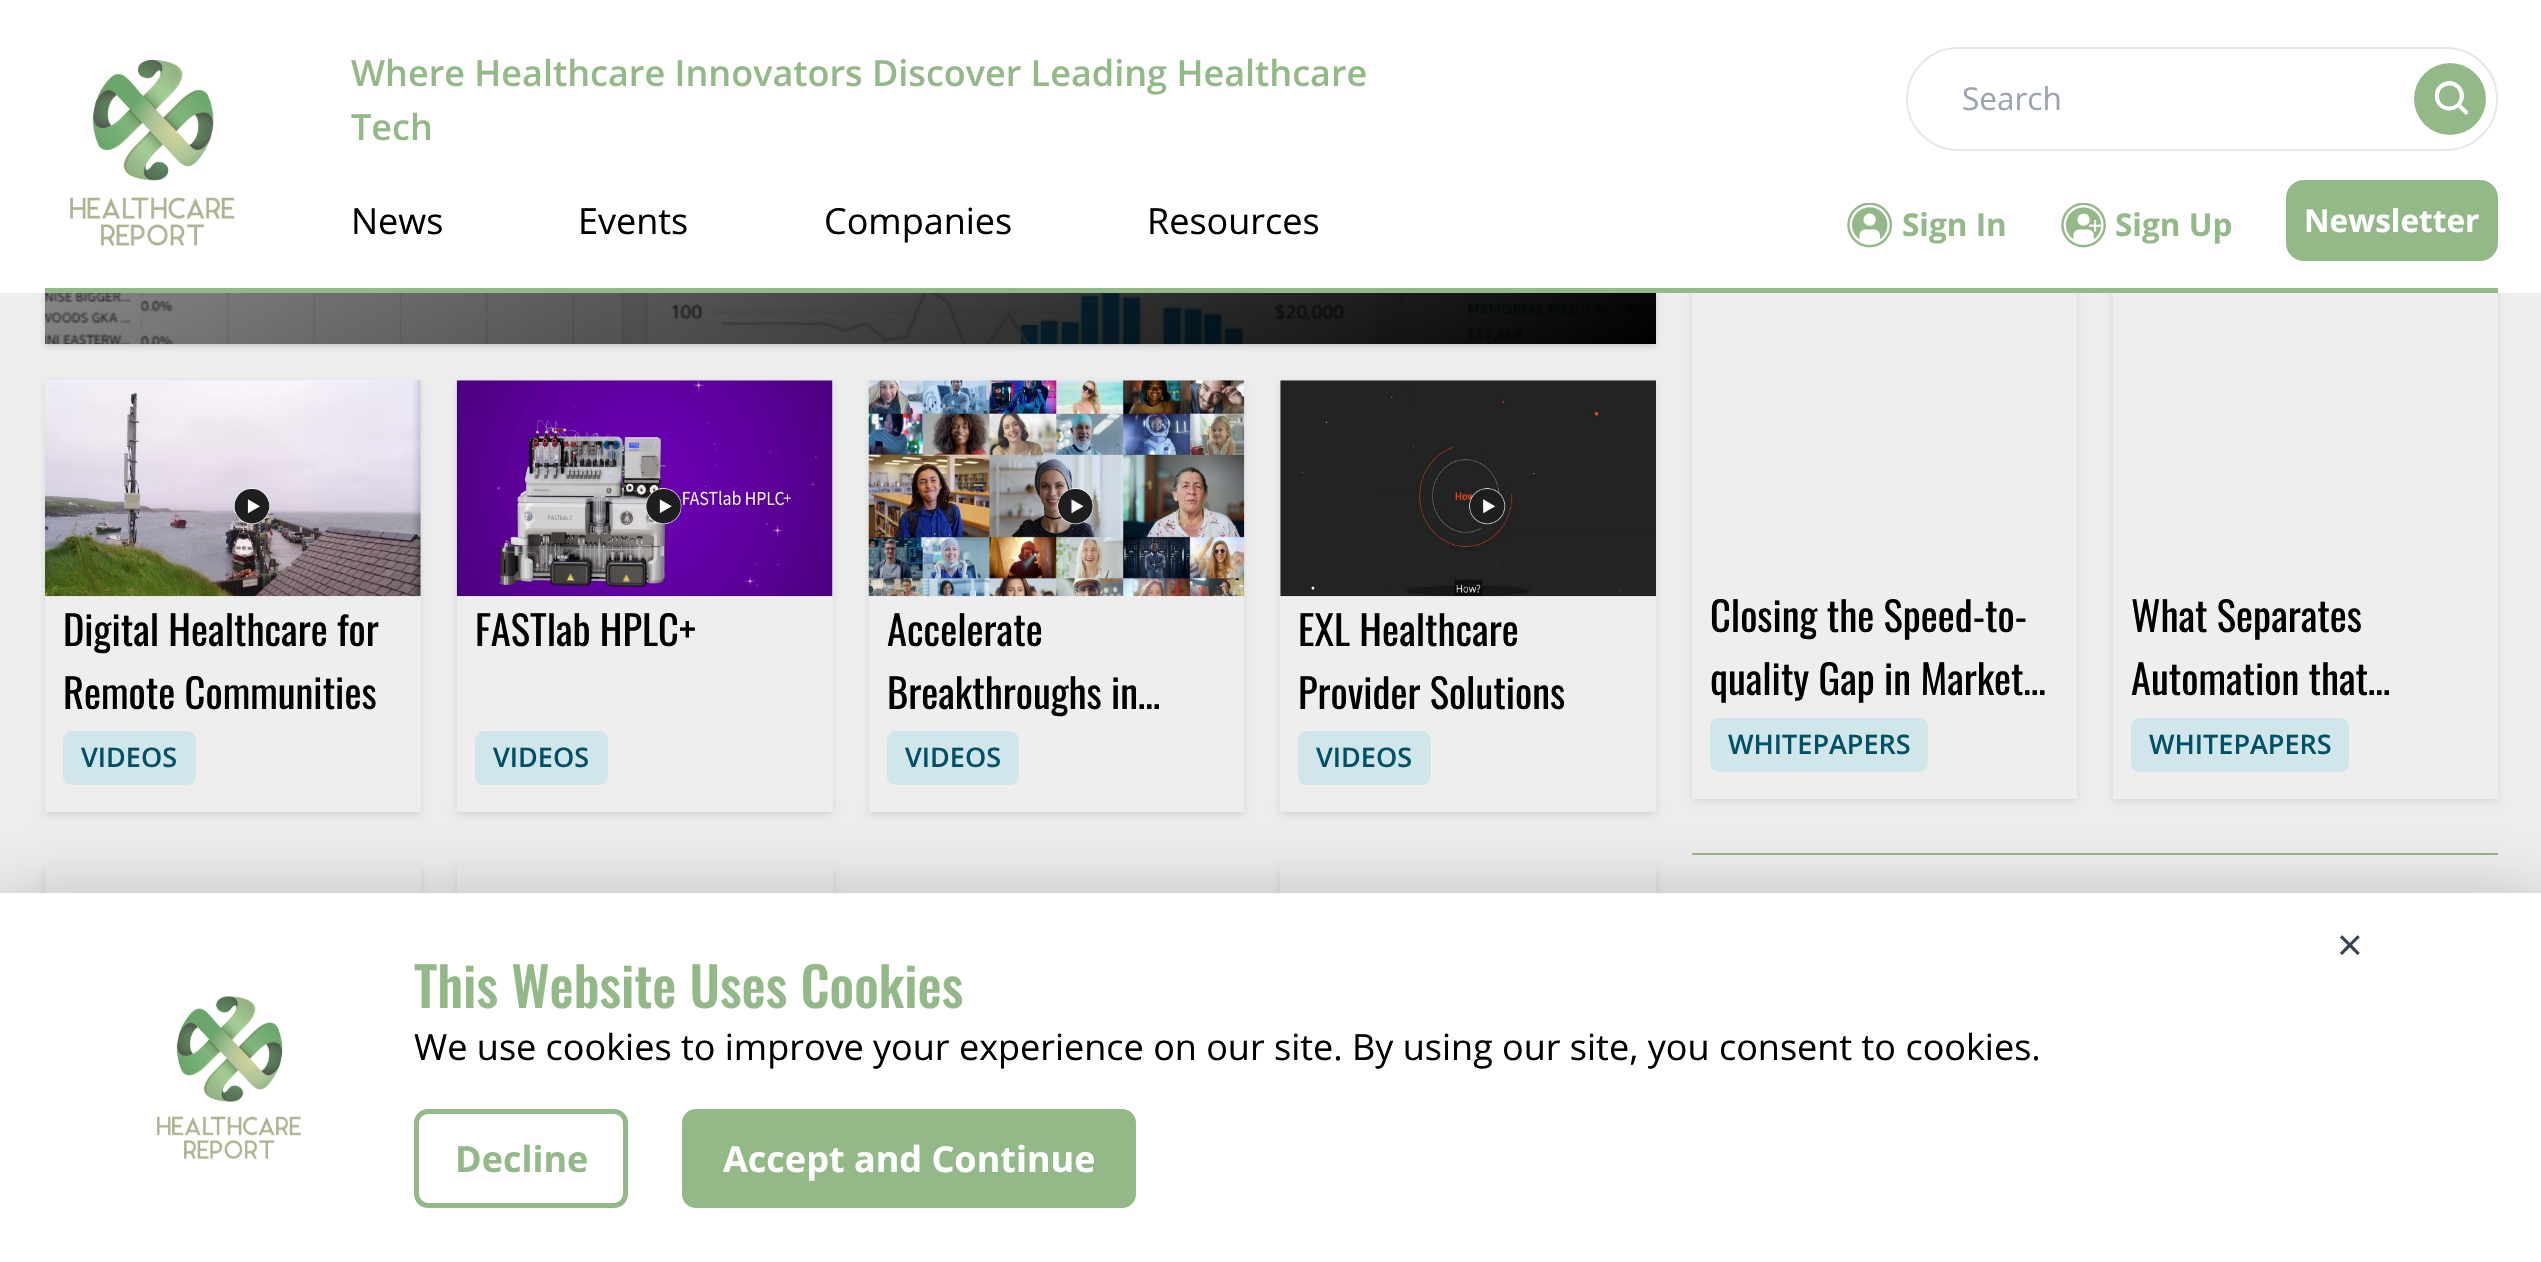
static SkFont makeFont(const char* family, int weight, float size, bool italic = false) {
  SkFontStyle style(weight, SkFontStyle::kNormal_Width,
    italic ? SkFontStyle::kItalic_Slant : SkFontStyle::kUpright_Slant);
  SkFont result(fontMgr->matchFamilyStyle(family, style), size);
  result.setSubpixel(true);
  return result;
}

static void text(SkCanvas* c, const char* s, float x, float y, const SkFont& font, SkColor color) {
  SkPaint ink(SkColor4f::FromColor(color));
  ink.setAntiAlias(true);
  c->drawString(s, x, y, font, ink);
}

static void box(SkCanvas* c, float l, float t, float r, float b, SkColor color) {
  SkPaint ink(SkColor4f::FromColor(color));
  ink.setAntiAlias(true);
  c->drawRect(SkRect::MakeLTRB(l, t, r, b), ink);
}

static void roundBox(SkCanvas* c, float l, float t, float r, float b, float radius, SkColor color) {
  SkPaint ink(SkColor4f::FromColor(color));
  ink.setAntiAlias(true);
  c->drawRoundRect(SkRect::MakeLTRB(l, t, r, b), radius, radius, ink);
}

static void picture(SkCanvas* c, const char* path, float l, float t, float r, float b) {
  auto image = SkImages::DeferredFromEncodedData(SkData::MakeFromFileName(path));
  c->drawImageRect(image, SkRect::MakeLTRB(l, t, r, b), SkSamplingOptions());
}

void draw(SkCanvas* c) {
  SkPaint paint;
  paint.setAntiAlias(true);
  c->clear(0xffeeeeee);
  paint.setColor(0x1a000000);
  paint.setMaskFilter(SkMaskFilter::MakeBlur(kNormal_SkBlurStyle, 2));
  c->drawRect(SkRect::MakeLTRB(47, -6, 1654, 344), paint);
  paint.setMaskFilter(nullptr);
  paint.setMaskFilter(SkMaskFilter::MakeBlur(kNormal_SkBlurStyle, 3.5f));
  c->drawRect(SkRect::MakeLTRB(45, -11, 1656, 347), paint);
  paint.setMaskFilter(nullptr);
  c->save();
  c->clipPath(SkPathBuilder(SkPathFillType::kEvenOdd).moveTo(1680, 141).lineTo(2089, 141).lineTo(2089, 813).lineTo(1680, 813).close().moveTo(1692, 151).lineTo(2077, 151).lineTo(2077, 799).lineTo(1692, 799).close().detach(), true);
  paint.setMaskFilter(SkMaskFilter::MakeBlur(kNormal_SkBlurStyle, 3.5f));
  c->drawRect(SkRect::MakeLTRB(1692, 153, 2077, 801), paint);
  paint.setMaskFilter(nullptr);
  c->restore();
  c->save();
  c->clipPath(SkPathBuilder(SkPathFillType::kEvenOdd).moveTo(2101, 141).lineTo(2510, 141).lineTo(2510, 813).lineTo(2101, 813).close().moveTo(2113, 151).lineTo(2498, 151).lineTo(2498, 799).lineTo(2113, 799).close().detach(), true);
  paint.setMaskFilter(SkMaskFilter::MakeBlur(kNormal_SkBlurStyle, 3.5f));
  c->drawRect(SkRect::MakeLTRB(2113, 153, 2498, 801), paint);
  paint.setMaskFilter(nullptr);
  c->restore();
  box(c, 0, 0, 2541, 293, 0xffffffff);
  box(c, 45, 288, 2498, 293, 0xff94b988);
  picture(c, "img_01.png", 70, 59, 235, 246);
  SkFont face1 = makeFont("Open Sans", 600, 36);
  text(c, "Where Healthcare Innovators Discover Leading Healthcare", 351, 86, face1, 0xff94b988);
  text(c, "Tech", 351, 140, face1, 0xff94b988);
  paint.setStyle(SkPaint::kStroke_Style);
  paint.setStrokeWidth(2);
  paint.setColor(0xffe5e7eb);
  c->drawRoundRect(SkRect::MakeLTRB(1907, 48, 2497, 150), 51, 51, paint);
  SkFont face2 = makeFont("Open Sans", 400, 31.5f);
  text(c, "Search", 1962, 110, face2, 0xff9ca3af);
  paint.setStyle(SkPaint::kFill_Style);
  paint.setColor(0xff94b988);
  c->drawCircle(2450, 99, 36, paint);
  c->save();
  c->clipRect(SkRect::MakeLTRB(2435, 81, 2468, 115));
  paint.setColor(0xffffffff);
  c->drawPath(SkPathBuilder().moveTo(2467.5f, 111).lineTo(2461, 104.5f).cubicTo(2466, 98, 2464.5f, 89, 2458, 84).cubicTo(2451.5f, 79, 2442.5f, 80.5f, 2437.5f, 87).cubicTo(2432.5f, 93.5f, 2434, 102.5f, 2440.5f, 107.5f).cubicTo(2445.5f, 111.5f, 2453, 111.5f, 2458, 107.5f).lineTo(2465.5f, 114.5f).cubicTo(2467.5f, 115.5f, 2469, 112.5f, 2467.5f, 111).close().moveTo(2449.5f, 106.5f).cubicTo(2435.5f, 106.5f, 2435.5f, 85.5f, 2449.5f, 85.5f).cubicTo(2463, 85.5f, 2463, 106.5f, 2449.5f, 106.5f).close().detach(), paint);
  c->restore();
  SkFont face3 = makeFont("Open Sans", 400, 36);
  text(c, "News", 351, 234, face3, 0xff000000);
  text(c, "Events", 578, 234, face3, 0xff000000);
  text(c, "Companies", 824, 234, face3, 0xff000000);
  text(c, "Resources", 1147, 234, face3, 0xff000000);
  picture(c, "img_02.png", 1847, 203, 1892, 248);
  SkFont face4 = makeFont("Open Sans", 700, 31.5f);
  text(c, "Sign In", 1902, 236, face4, 0xff94b988);
  picture(c, "img_03.png", 2061, 203, 2106, 248);
  text(c, "Sign Up", 2115, 236, face4, 0xff94b988);
  roundBox(c, 2286, 180, 2498, 261, 18, 0xff94b988);
  text(c, "Newsletter", 2304, 232, face4, 0xffffffff);
  picture(c, "img_04.png", 45, 293, 1656, 345);
  c->save();
  c->clipPath(SkPathBuilder(SkPathFillType::kEvenOdd).moveTo(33, 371).lineTo(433, 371).lineTo(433, 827).lineTo(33, 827).close().moveTo(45, 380).lineTo(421, 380).lineTo(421, 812).lineTo(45, 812).close().detach(), true);
  paint.setColor(0x1a000000);
  paint.setMaskFilter(SkMaskFilter::MakeBlur(kNormal_SkBlurStyle, 3.5f));
  c->drawRect(SkRect::MakeLTRB(45, 383, 421, 815), paint);
  paint.setMaskFilter(nullptr);
  c->restore();
  picture(c, "img_05.png", 45, 380, 421, 597);
  picture(c, "img_06.png", 234, 488, 270, 525);
  SkFont face5 = makeFont("Oswald", 400, 40.5f);
  text(c, "Digital Healthcare for", 63, 646, face5, 0xff000000);
  text(c, "Remote Communities", 63, 709, face5, 0xff000000);
  roundBox(c, 63, 731, 196, 785, 9, 0xffd0e6ea);
  SkFont face6 = makeFont("Open Sans", 600, 27);
  text(c, "VIDEOS", 81, 767, face6, 0xff005066);
  c->save();
  c->clipPath(SkPathBuilder(SkPathFillType::kEvenOdd).moveTo(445, 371).lineTo(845, 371).lineTo(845, 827).lineTo(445, 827).close().moveTo(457, 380).lineTo(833, 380).lineTo(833, 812).lineTo(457, 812).close().detach(), true);
  paint.setMaskFilter(SkMaskFilter::MakeBlur(kNormal_SkBlurStyle, 3.5f));
  c->drawRect(SkRect::MakeLTRB(457, 383, 833, 815), paint);
  paint.setMaskFilter(nullptr);
  c->restore();
  picture(c, "img_07.png", 456, 380, 833, 597);
  picture(c, "img_08.png", 645, 488, 682, 525);
  text(c, "FASTlab HPLC+", 475, 646, face5, 0xff000000);
  roundBox(c, 475, 731, 608, 785, 9, 0xffd0e6ea);
  text(c, "VIDEOS", 493, 767, face6, 0xff005066);
  c->save();
  c->clipPath(SkPathBuilder(SkPathFillType::kEvenOdd).moveTo(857, 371).lineTo(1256, 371).lineTo(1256, 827).lineTo(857, 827).close().moveTo(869, 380).lineTo(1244, 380).lineTo(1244, 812).lineTo(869, 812).close().detach(), true);
  paint.setMaskFilter(SkMaskFilter::MakeBlur(kNormal_SkBlurStyle, 3.5f));
  c->drawRect(SkRect::MakeLTRB(869, 383, 1244, 815), paint);
  paint.setMaskFilter(nullptr);
  c->restore();
  picture(c, "img_09.png", 868, 380, 1245, 597);
  picture(c, "img_10.png", 1057, 488, 1094, 525);
  text(c, "Accelerate", 887, 646, face5, 0xff000000);
  text(c, "Breakthroughs in…", 887, 709, face5, 0xff000000);
  roundBox(c, 887, 731, 1019, 785, 9, 0xffd0e6ea);
  text(c, "VIDEOS", 905, 767, face6, 0xff005066);
  c->save();
  c->clipPath(SkPathBuilder(SkPathFillType::kEvenOdd).moveTo(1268, 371).lineTo(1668, 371).lineTo(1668, 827).lineTo(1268, 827).close().moveTo(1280, 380).lineTo(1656, 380).lineTo(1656, 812).lineTo(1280, 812).close().detach(), true);
  paint.setMaskFilter(SkMaskFilter::MakeBlur(kNormal_SkBlurStyle, 3.5f));
  c->drawRect(SkRect::MakeLTRB(1280, 383, 1656, 815), paint);
  paint.setMaskFilter(nullptr);
  c->restore();
  picture(c, "img_11.png", 1280, 380, 1656, 597);
  picture(c, "img_12.png", 1469, 488, 1506, 525);
  text(c, "EXL Healthcare", 1298, 646, face5, 0xff000000);
  text(c, "Provider Solutions", 1298, 709, face5, 0xff000000);
  roundBox(c, 1298, 731, 1431, 785, 9, 0xffd0e6ea);
  text(c, "VIDEOS", 1316, 767, face6, 0xff005066);
  c->save();
  c->clipPath(SkPathBuilder(SkPathFillType::kEvenOdd).moveTo(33, 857).lineTo(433, 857).lineTo(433, 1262).lineTo(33, 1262).close().moveTo(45, 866).lineTo(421, 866).lineTo(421, 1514).lineTo(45, 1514).close().detach(), true);
  paint.setMaskFilter(SkMaskFilter::MakeBlur(kNormal_SkBlurStyle, 3.5f));
  c->drawRect(SkRect::MakeLTRB(45, 869, 421, 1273), paint);
  paint.setMaskFilter(nullptr);
  c->restore();
  c->save();
  c->clipPath(SkPathBuilder(SkPathFillType::kEvenOdd).moveTo(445, 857).lineTo(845, 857).lineTo(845, 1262).lineTo(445, 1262).close().moveTo(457, 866).lineTo(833, 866).lineTo(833, 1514).lineTo(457, 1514).close().detach(), true);
  paint.setMaskFilter(SkMaskFilter::MakeBlur(kNormal_SkBlurStyle, 3.5f));
  c->drawRect(SkRect::MakeLTRB(457, 869, 833, 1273), paint);
  paint.setMaskFilter(nullptr);
  c->restore();
  c->save();
  c->clipPath(SkPathBuilder(SkPathFillType::kEvenOdd).moveTo(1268, 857).lineTo(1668, 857).lineTo(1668, 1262).lineTo(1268, 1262).close().moveTo(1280, 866).lineTo(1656, 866).lineTo(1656, 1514).lineTo(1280, 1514).close().detach(), true);
  paint.setMaskFilter(SkMaskFilter::MakeBlur(kNormal_SkBlurStyle, 3.5f));
  c->drawRect(SkRect::MakeLTRB(1280, 869, 1656, 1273), paint);
  paint.setMaskFilter(nullptr);
  c->restore();
  text(c, "Closing the Speed-to-", 1710, 632, face5, 0xff000000);
  text(c, "quality Gap in Market…", 1710, 695, face5, 0xff000000);
  roundBox(c, 1710, 718, 1928, 772, 9, 0xffd0e6ea);
  text(c, "WHITEPAPERS", 1728, 754, face6, 0xff005066);
  text(c, "What Separates", 2131, 632, face5, 0xff000000);
  text(c, "Automation that…", 2131, 695, face5, 0xff000000);
  roundBox(c, 2131, 718, 2349, 772, 9, 0xffd0e6ea);
  text(c, "WHITEPAPERS", 2149, 754, face6, 0xff005066);
  box(c, 1692, 853, 2498, 855, 0xff94b988);
  paint.setColor(0x33000000);
  paint.setMaskFilter(SkMaskFilter::MakeBlur(kNormal_SkBlurStyle, 31.5f));
  c->drawRect(SkRect::MakeLTRB(0, 893, 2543, 1262), paint);
  paint.setMaskFilter(nullptr);
  box(c, 0, 893, 2541, 1262, 0xffffffff);
  SkFont face7 = makeFont("Open Sans", 400, 45);
  text(c, "×", 2337, 961, face7, 0xff374151);
  picture(c, "img_13.png", 157, 995, 301, 1160);
  SkFont face8 = makeFont("Oswald", 500, 54);
  text(c, "This Website Uses Cookies", 414, 1008, face8, 0xff94b988);
  text(c, "We use cookies to improve your experience on our site. By using our site, you consent to cookies.", 414, 1060, face3, 0xff000000);
  paint.setStyle(SkPaint::kStroke_Style);
  paint.setStrokeWidth(5);
  paint.setColor(0xff94b988);
  c->drawRoundRect(SkRect::MakeLTRB(416.5f, 1111.5f, 625.5f, 1205.5f), 11.5f, 11.5f, paint);
  SkFont face9 = makeFont("Open Sans", 700, 36);
  text(c, "Decline", 455, 1172, face9, 0xff94b988);
  paint.setStyle(SkPaint::kFill_Style);
  c->drawRoundRect(SkRect::MakeLTRB(684.5f, 1111.5f, 1133.5f, 1205.5f), 11.5f, 11.5f, paint);
  paint.setStyle(SkPaint::kStroke_Style);
  c->drawRoundRect(SkRect::MakeLTRB(684.5f, 1111.5f, 1133.5f, 1205.5f), 11.5f, 11.5f, paint);
  text(c, "Accept and Continue", 723, 1172, face9, 0xffffffff);
}
